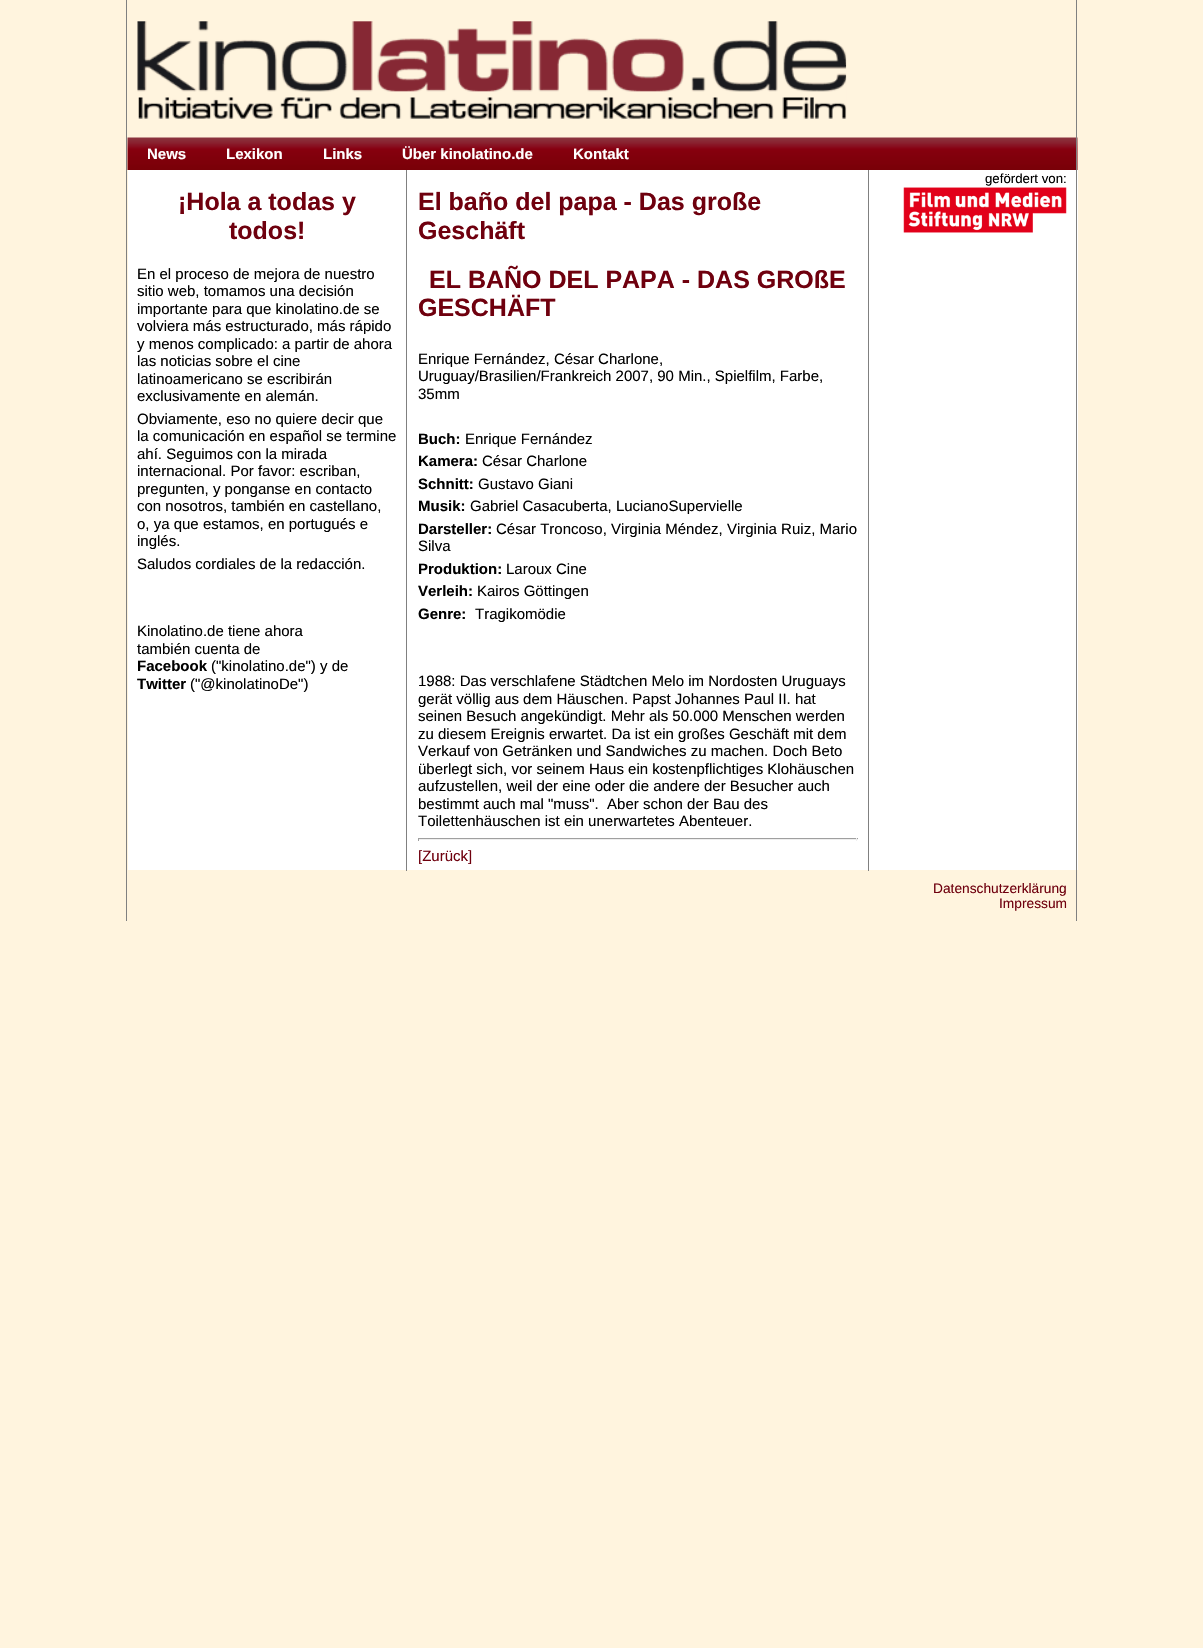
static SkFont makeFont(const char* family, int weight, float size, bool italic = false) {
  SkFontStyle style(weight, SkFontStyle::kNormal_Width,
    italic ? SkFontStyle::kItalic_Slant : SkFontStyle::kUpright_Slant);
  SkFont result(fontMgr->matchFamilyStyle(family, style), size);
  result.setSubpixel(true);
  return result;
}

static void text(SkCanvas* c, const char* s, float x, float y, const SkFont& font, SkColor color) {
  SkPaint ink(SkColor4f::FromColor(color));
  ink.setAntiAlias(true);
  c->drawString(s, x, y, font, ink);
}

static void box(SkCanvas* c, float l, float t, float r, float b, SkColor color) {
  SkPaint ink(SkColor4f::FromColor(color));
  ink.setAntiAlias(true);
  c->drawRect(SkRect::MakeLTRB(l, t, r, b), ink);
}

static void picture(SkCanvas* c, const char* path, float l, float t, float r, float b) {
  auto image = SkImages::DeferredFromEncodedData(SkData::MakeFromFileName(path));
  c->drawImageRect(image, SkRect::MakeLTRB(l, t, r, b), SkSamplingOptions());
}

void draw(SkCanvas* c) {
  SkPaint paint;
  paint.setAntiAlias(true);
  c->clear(0xfffff4de);
  picture(c, "img_01.png", 137, 21, 847, 119);
  box(c, 846, 54, 847, 119, 0xbffff3de);
  picture(c, "img_02.png", 127, 137, 1078, 170);
  SkFont face1 = makeFont("Liberation Sans", 700, 15);
  text(c, "News", 147, 159, face1, 0xffffffff);
  text(c, "Lexikon", 226, 159, face1, 0xffffffff);
  text(c, "Links", 323, 159, face1, 0xffffffff);
  text(c, "Über kinolatino.de", 402, 159, face1, 0xffffffff);
  text(c, "Kontakt", 573, 159, face1, 0xffffffff);
  box(c, 869, 170, 1078, 870, 0xffffffff);
  box(c, 1076, 0, 1077, 921, 0xff808080);
  box(c, 868, 170, 869, 871, 0xff808080);
  SkFont face2 = makeFont("Liberation Sans", 400, 13.25f);
  text(c, "gefördert von:", 985, 183, face2, 0xff000000);
  picture(c, "img_03.png", 903, 187, 1067, 233);
  box(c, 128, 170, 868, 870, 0xffffffff);
  box(c, 126, 0, 127, 921, 0xff808080);
  SkFont face3 = makeFont("Liberation Sans", 700, 25);
  text(c, "¡Hola a todas y", 178, 210, face3, 0xff6f000e);
  text(c, "todos!", 229, 239, face3, 0xff6f000e);
  SkFont face4 = makeFont("Liberation Sans", 400, 15);
  text(c, "En el proceso de mejora de nuestro", 137, 279, face4, 0xff000000);
  text(c, "sitio web, tomamos una decisión", 137, 296, face4, 0xff000000);
  text(c, "importante para que kinolatino.de se", 137, 314, face4, 0xff000000);
  text(c, "volviera más estructurado, más rápido", 137, 331, face4, 0xff000000);
  text(c, "y menos complicado: a partir de ahora", 137, 349, face4, 0xff000000);
  text(c, "las noticias sobre el cine", 137, 366, face4, 0xff000000);
  text(c, "latinoamericano se escribirán", 137, 384, face4, 0xff000000);
  text(c, "exclusivamente en alemán.", 137, 401, face4, 0xff000000);
  text(c, "Obviamente, eso no quiere decir que", 137, 424, face4, 0xff000000);
  text(c, "la comunicación en español se termine", 137, 441, face4, 0xff000000);
  text(c, "ahí. Seguimos con la mirada", 137, 459, face4, 0xff000000);
  text(c, "internacional. Por favor: escriban,", 137, 476, face4, 0xff000000);
  text(c, "pregunten, y ponganse en contacto", 137, 494, face4, 0xff000000);
  text(c, "con nosotros, también en castellano,", 137, 511, face4, 0xff000000);
  text(c, "o, ya que estamos, en portugués e", 137, 529, face4, 0xff000000);
  text(c, "inglés.", 137, 546, face4, 0xff000000);
  text(c, "Saludos cordiales de la redacción.", 137, 569, face4, 0xff000000);
  text(c, "Kinolatino.de tiene ahora", 137, 636, face4, 0xff000000);
  text(c, "también cuenta de", 137, 654, face4, 0xff000000);
  text(c, "Facebook", 137, 671, face1, 0xff000000);
  text(c, "(\"kinolatino.de\") y de", 211, 671, face4, 0xff000000);
  text(c, "Twitter", 137, 689, face1, 0xff000000);
  text(c, "(\"@kinolatinoDe\")", 190, 689, face4, 0xff000000);
  box(c, 406, 170, 407, 871, 0xff808080);
  text(c, "El baño del papa - Das große", 418, 210, face3, 0xff6f000e);
  text(c, "Geschäft", 418, 239, face3, 0xff6f000e);
  text(c, "EL BAÑO DEL PAPA - DAS GROßE", 429, 288, face3, 0xff6f000e);
  text(c, "GESCHÄFT", 418, 316, face3, 0xff6f000e);
  text(c, "Enrique Fernández, César Charlone,", 418, 364, face4, 0xff000000);
  text(c, "Uruguay/Brasilien/Frankreich 2007, 90 Min., Spielfilm, Farbe,", 418, 381, face4, 0xff000000);
  text(c, "35mm", 418, 399, face4, 0xff000000);
  text(c, "Buch:", 418, 444, face1, 0xff000000);
  text(c, "Enrique Fernández", 465, 444, face4, 0xff000000);
  text(c, "Kamera:", 418, 466, face1, 0xff000000);
  text(c, "César Charlone", 482, 466, face4, 0xff000000);
  text(c, "Schnitt:", 418, 489, face1, 0xff000000);
  text(c, "Gustavo Giani", 478, 489, face4, 0xff000000);
  text(c, "Musik:", 418, 511, face1, 0xff000000);
  text(c, "Gabriel Casacuberta, LucianoSupervielle", 470, 511, face4, 0xff000000);
  text(c, "Darsteller:", 418, 534, face1, 0xff000000);
  text(c, "César Troncoso, Virginia Méndez, Virginia Ruiz, Mario", 496, 534, face4, 0xff000000);
  text(c, "Silva", 418, 551, face4, 0xff000000);
  text(c, "Produktion:", 418, 574, face1, 0xff000000);
  text(c, "Laroux Cine", 506, 574, face4, 0xff000000);
  text(c, "Verleih:", 418, 596, face1, 0xff000000);
  text(c, "Kairos Göttingen", 477, 596, face4, 0xff000000);
  text(c, "Genre:", 418, 619, face1, 0xff000000);
  text(c, "Tragikomödie", 475, 619, face4, 0xff000000);
  text(c, "1988: Das verschlafene Städtchen Melo im Nordosten Uruguays", 418, 686, face4, 0xff000000);
  text(c, "gerät völlig aus dem Häuschen. Papst Johannes Paul II. hat", 418, 704, face4, 0xff000000);
  text(c, "seinen Besuch angekündigt. Mehr als 50.000 Menschen werden", 418, 721, face4, 0xff000000);
  text(c, "zu diesem Ereignis erwartet. Da ist ein großes Geschäft mit dem", 418, 739, face4, 0xff000000);
  text(c, "Verkauf von Getränken und Sandwiches zu machen. Doch Beto", 418, 756, face4, 0xff000000);
  text(c, "überlegt sich, vor seinem Haus ein kostenpflichtiges Klohäuschen", 418, 774, face4, 0xff000000);
  text(c, "aufzustellen, weil der eine oder die andere der Besucher auch", 418, 791, face4, 0xff000000);
  text(c, "bestimmt auch mal \"muss\".  Aber schon der Bau des", 418, 809, face4, 0xff000000);
  text(c, "Toilettenhäuschen ist ein unerwartetes Abenteuer.", 418, 826, face4, 0xff000000);
  box(c, 418, 838, 858, 839, 0xff9f9f9f);
  box(c, 856, 838, 857, 841, 0xffeeeeee);
  box(c, 418, 839, 858, 840, 0xffeeeeee);
  box(c, 418, 838, 419, 841, 0xff9f9f9f);
  text(c, "[Zurück]", 418, 861, face4, 0xff6f000e);
  SkFont face5 = makeFont("Liberation Sans", 400, 13.75f);
  text(c, "Datenschutzerklärung", 933, 893, face5, 0xff6f000e);
  text(c, "Impressum", 999, 908, face5, 0xff6f000e);
}
